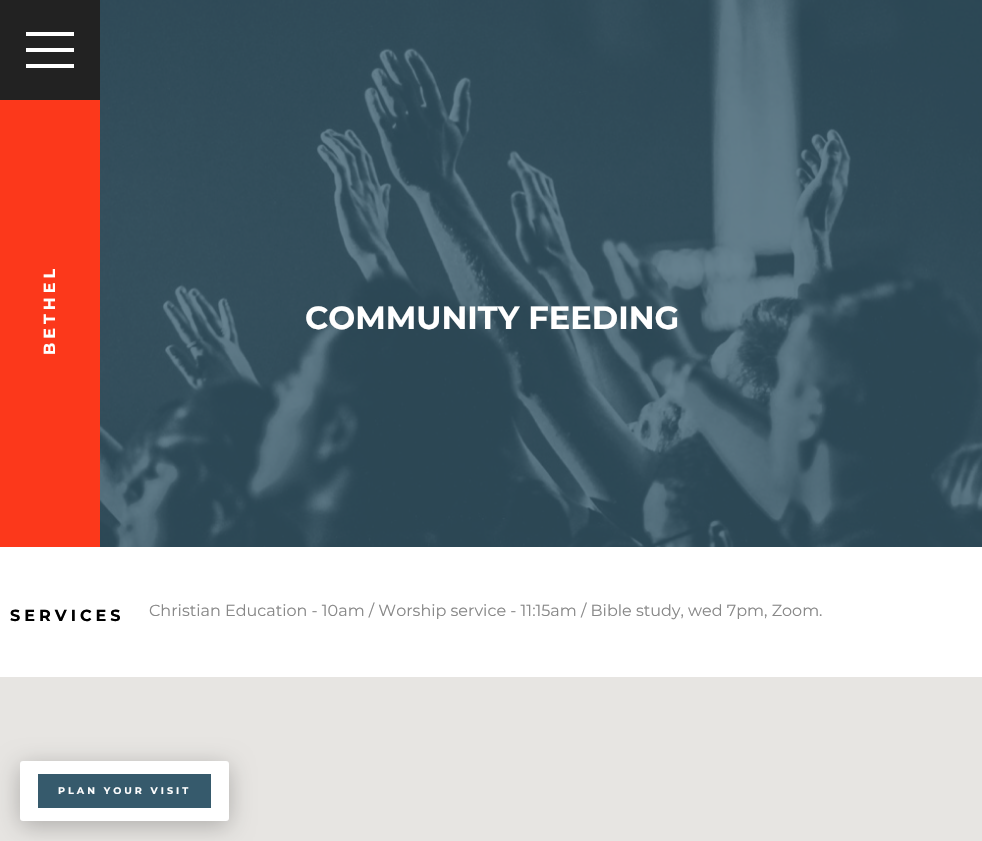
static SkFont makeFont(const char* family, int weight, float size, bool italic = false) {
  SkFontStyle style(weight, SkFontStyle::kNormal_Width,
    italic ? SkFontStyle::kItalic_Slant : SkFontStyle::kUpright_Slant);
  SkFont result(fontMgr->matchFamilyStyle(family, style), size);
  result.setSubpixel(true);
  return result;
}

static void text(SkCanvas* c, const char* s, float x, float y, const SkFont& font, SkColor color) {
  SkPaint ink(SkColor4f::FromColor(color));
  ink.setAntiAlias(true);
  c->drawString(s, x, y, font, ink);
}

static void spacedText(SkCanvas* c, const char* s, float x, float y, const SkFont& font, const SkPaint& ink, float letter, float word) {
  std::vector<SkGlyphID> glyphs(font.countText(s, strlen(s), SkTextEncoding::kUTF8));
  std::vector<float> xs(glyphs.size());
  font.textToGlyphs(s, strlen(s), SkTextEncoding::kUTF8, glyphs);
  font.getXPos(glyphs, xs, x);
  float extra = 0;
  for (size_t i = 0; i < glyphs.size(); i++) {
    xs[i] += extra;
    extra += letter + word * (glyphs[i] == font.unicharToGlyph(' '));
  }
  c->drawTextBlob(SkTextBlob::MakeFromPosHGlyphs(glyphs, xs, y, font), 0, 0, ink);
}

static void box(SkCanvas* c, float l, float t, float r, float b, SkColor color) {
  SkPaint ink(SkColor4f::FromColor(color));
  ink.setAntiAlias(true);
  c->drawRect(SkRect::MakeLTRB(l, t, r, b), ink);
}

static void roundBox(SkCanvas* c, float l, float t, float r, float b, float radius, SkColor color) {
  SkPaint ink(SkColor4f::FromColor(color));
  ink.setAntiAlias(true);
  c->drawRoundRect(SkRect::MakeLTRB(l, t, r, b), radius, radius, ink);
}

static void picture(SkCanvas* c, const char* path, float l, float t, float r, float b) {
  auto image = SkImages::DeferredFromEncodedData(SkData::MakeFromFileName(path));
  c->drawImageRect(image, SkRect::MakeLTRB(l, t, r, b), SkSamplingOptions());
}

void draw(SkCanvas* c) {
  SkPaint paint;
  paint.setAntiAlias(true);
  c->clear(0xffffffff);
  box(c, 0, 0, 100, 100, 0xff222222);
  box(c, 26, 32, 74, 36, 0xffffffff);
  box(c, 26, 48, 74, 52, 0xffffffff);
  box(c, 26, 64, 74, 68, 0xffffffff);
  box(c, 0, 100, 100, 547, 0xfffc381b);
  SkFont face1 = makeFont("Montserrat", 700, 16);
  paint.setColor(0xffffffff);
  c->save();
  c->rotate(-90, 55, 355);
  spacedText(c, "BETHEL", 55, 355, face1, paint, 4, 0);
  c->restore();
  picture(c, "img_01.png", 100, 0, 982, 547);
  SkFont face2 = makeFont("Montserrat", 700, 32);
  text(c, "COMMUNITY FEEDING", 305, 329, face2, 0xffffffff);
  paint.setColor(0xff000000);
  spacedText(c, "SERVICES", 10, 621, face1, paint, 4, 0);
  SkFont face3 = makeFont("Montserrat", 400, 16);
  text(c, "Christian Education - 10am / Worship service - 11:15am / Bible study, wed 7pm, Zoom.", 149, 616, face3, 0xff888888);
  box(c, 0, 677, 982, 841, 0xffe7e5e2);
  paint.setColor(0x40000000);
  paint.setMaskFilter(SkMaskFilter::MakeBlur(kNormal_SkBlurStyle, 12.5f));
  c->drawRoundRect(SkRect::MakeLTRB(20, 766, 229, 826), 3, 3, paint);
  paint.setMaskFilter(nullptr);
  roundBox(c, 20, 761, 229, 821, 3, 0xffffffff);
  box(c, 38, 774, 211, 808, 0xff365a6c);
  SkFont face4 = makeFont("Montserrat", 700, 9.6f);
  paint.setColor(0xffffffff);
  spacedText(c, "PLAN YOUR VISIT", 58, 794, face4, paint, 3, 0);
}
